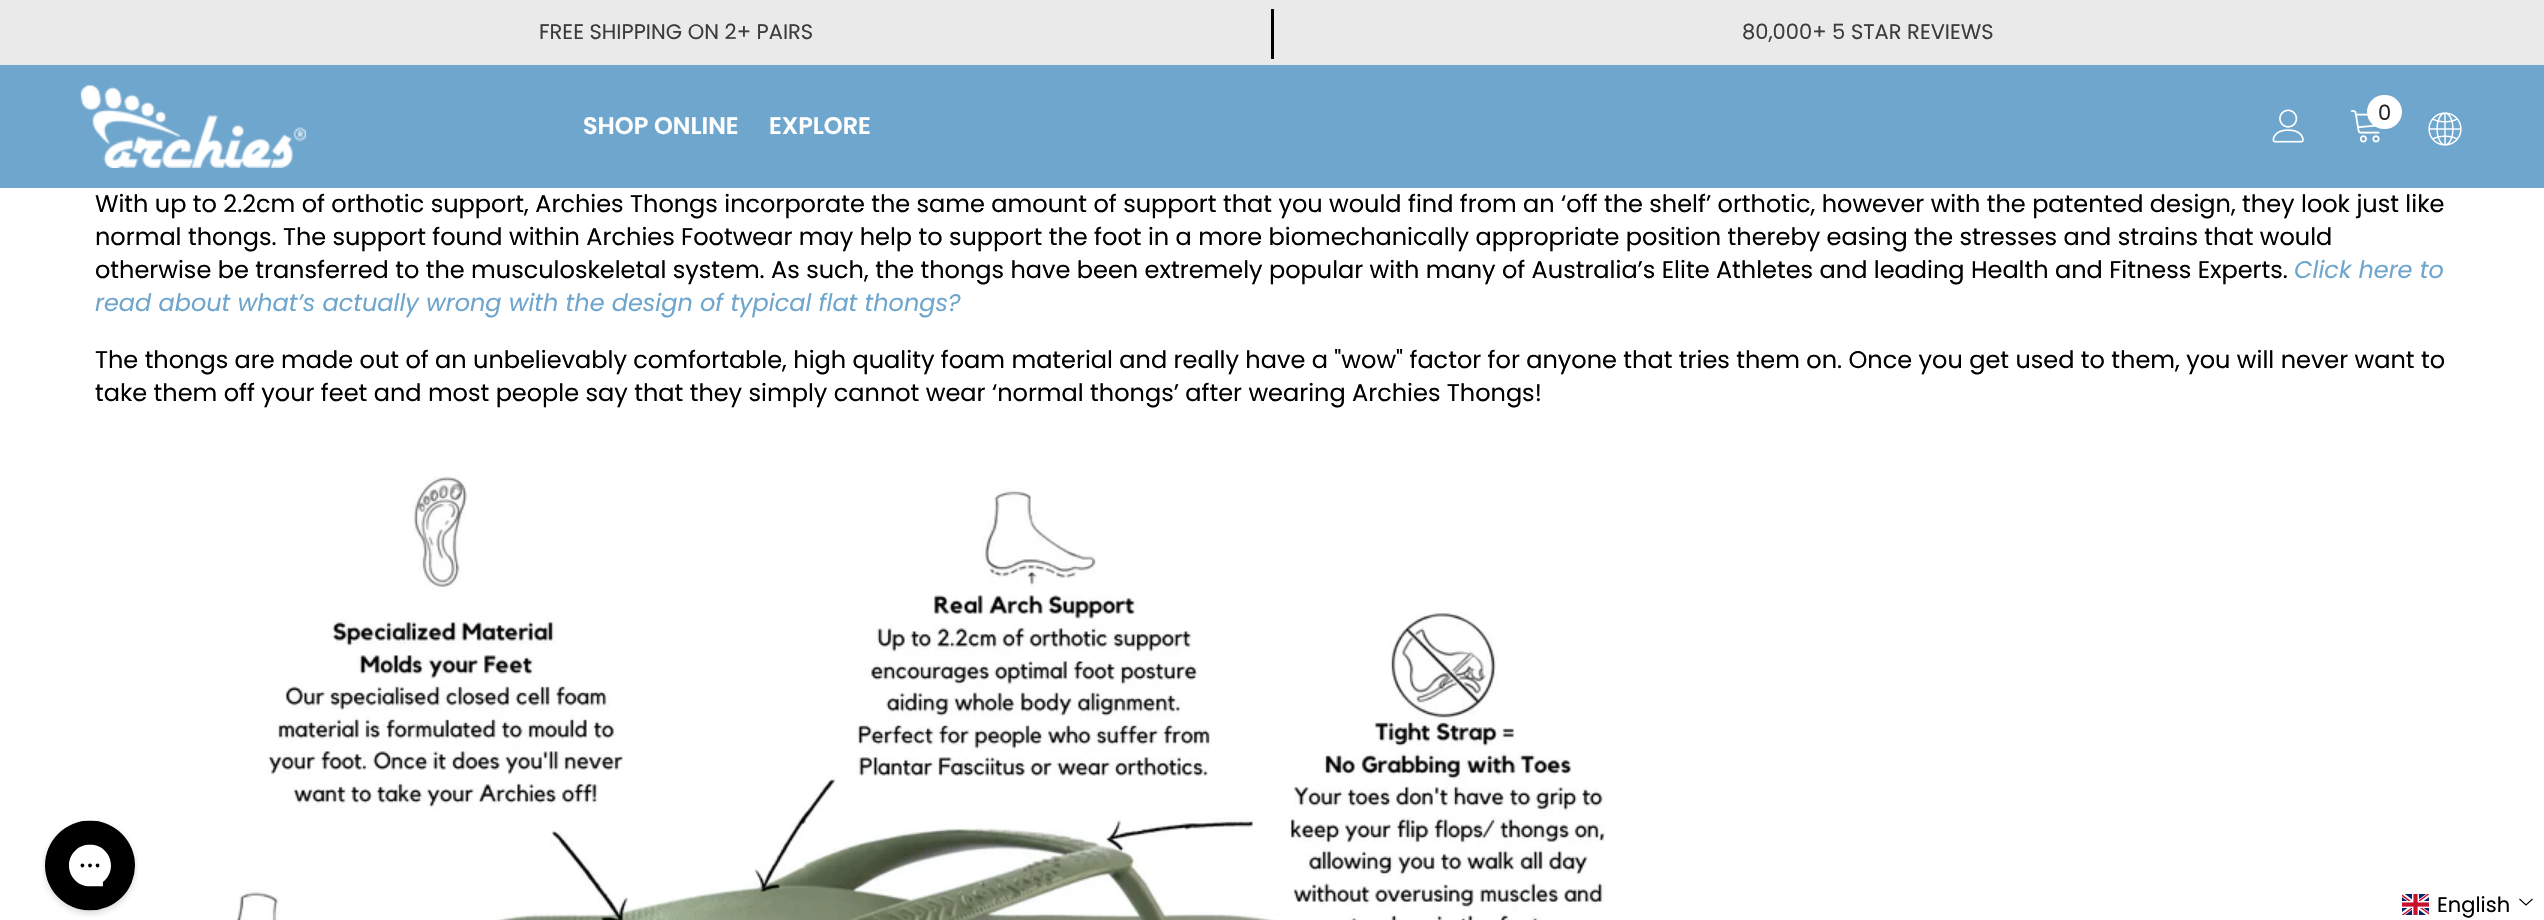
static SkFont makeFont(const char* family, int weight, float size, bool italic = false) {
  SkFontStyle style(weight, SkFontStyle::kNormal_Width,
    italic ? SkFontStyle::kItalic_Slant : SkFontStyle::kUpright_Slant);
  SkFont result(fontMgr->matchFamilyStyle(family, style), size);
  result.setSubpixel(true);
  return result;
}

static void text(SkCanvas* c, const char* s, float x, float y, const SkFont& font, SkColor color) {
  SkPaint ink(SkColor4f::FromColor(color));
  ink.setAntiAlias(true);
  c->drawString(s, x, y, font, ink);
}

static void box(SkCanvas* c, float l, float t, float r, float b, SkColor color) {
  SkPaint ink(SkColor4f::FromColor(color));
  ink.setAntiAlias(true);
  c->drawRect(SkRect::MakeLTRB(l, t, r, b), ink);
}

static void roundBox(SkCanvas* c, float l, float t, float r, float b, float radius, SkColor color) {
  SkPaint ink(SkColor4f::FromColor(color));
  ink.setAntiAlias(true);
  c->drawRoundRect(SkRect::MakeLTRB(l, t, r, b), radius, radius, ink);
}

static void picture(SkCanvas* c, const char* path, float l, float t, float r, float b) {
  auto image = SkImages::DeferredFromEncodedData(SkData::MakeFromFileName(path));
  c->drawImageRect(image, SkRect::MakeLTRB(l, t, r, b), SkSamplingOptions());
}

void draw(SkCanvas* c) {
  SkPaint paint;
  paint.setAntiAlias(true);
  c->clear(0xffffffff);
  box(c, 0, 0, 2544, 65, 0xffeaeaea);
  SkFont face1 = makeFont("Poppins", 400, 21);
  text(c, "FREE SHIPPING ON 2+ PAIRS", 539, 39, face1, 0xff3c3c3c);
  box(c, 1271, 9, 1274, 59, 0xff000000);
  text(c, "80,000+ 5 STAR REVIEWS", 1742, 39, face1, 0xff3c3c3c);
  box(c, 0, 65, 2544, 188, 0xff6fa6cd);
  picture(c, "img_01.png", 80, 85, 306, 168);
  picture(c, "img_02.png", 2272, 109, 2304, 143);
  picture(c, "img_03.png", 2350, 110, 2380, 143);
  roundBox(c, 2367, 95, 2402, 129, 17, 0xffffffff);
  text(c, "0", 2378, 120, face1, 0xff232323);
  picture(c, "img_04.png", 2428, 112, 2462, 146);
  SkFont face2 = makeFont("Poppins", 600, 24);
  text(c, "SHOP ONLINE", 583, 134, face2, 0xffffffff);
  text(c, "EXPLORE", 769, 134, face2, 0xffffffff);
  SkFont face3 = makeFont("Poppins", 400, 24);
  text(c, "With up to 2.2cm of orthotic support, Archies Thongs incorporate the same amount of support that you would find from an ‘off the shelf’ orthotic, however with the patented design, they look just like", 95, 212, face3, 0xff000000);
  text(c, "normal thongs. The support found within Archies Footwear may help to support the foot in a more biomechanically appropriate position thereby easing the stresses and strains that would", 95, 245, face3, 0xff000000);
  text(c, "otherwise be transferred to the musculoskeletal system. As such, the thongs have been extremely popular with many of Australia’s Elite Athletes and leading Health and Fitness Experts.", 95, 278, face3, 0xff000000);
  SkFont face4 = makeFont("Poppins", 400, 24, true);
  text(c, "Click here to", 2294, 278, face4, 0xff6fa6cd);
  text(c, "read about what’s actually wrong with the design of typical flat thongs?", 95, 311, face4, 0xff6fa6cd);
  text(c, "The thongs are made out of an unbelievably comfortable, high quality foam material and really have a \"wow\" factor for anyone that tries them on. Once you get used to them, you will never want to", 95, 368, face3, 0xff000000);
  text(c, "take them off your feet and most people say that they simply cannot wear ‘normal thongs’ after wearing Archies Thongs!", 95, 401, face3, 0xff000000);
  picture(c, "img_05.png", 236, 476, 1606, 920);
  picture(c, "img_06.png", 42, 820, 138, 917);
  picture(c, "img_07.png", 2402, 894, 2429, 915);
  text(c, "English", 2437, 912, face1, 0xff000000);
  paint.setStyle(SkPaint::kStroke_Style);
  paint.setStrokeWidth(1.1f);
  paint.setColor(0xff000000);
  c->drawPath(SkPathBuilder().moveTo(2519.5f, 899).lineTo(2526, 905).lineTo(2532.5f, 899).detach(), paint);
}
